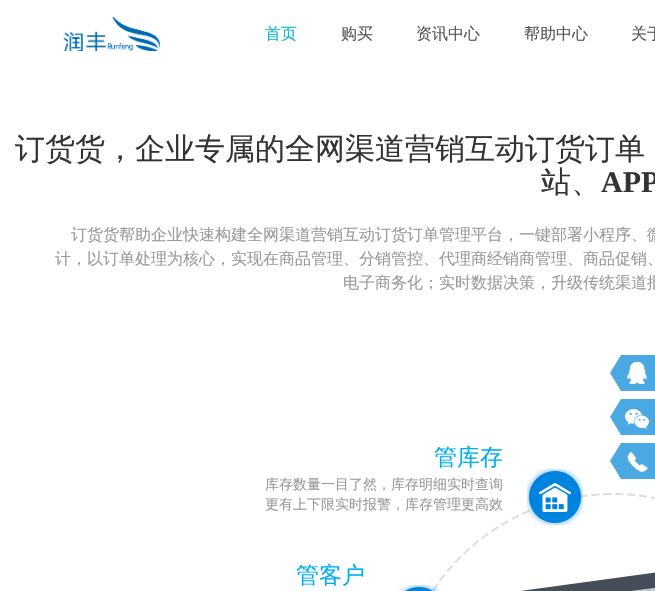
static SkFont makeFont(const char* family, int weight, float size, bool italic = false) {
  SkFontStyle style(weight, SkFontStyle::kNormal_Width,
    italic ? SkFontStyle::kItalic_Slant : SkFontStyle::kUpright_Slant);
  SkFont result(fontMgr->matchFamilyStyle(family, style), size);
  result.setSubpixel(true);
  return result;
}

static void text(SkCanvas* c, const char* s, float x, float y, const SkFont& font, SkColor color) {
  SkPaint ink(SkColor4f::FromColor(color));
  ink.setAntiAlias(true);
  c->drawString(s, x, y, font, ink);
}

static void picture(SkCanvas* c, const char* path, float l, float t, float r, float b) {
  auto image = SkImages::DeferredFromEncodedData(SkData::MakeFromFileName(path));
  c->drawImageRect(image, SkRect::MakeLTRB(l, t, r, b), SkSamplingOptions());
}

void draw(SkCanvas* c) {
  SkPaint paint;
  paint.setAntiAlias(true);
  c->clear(0xffffffff);
  picture(c, "img_01.png", 63, 17, 160, 51);
  SkFont face1 = makeFont("WenQuanYi Zen Hei", 500, 16);
  text(c, "首页", 265, 39, face1, 0xff03b8cc);
  text(c, "购买", 341, 39, face1, 0xff555555);
  text(c, "资讯中心", 416, 39, face1, 0xff555555);
  text(c, "帮助中心", 524, 39, face1, 0xff555555);
  text(c, "关于", 631, 39, face1, 0xff555555);
  SkFont face2 = makeFont("WenQuanYi Zen Hei", 500, 30);
  text(c, "订货货，企业专属的全网渠道营销互动订货订单", 15, 159, face2, 0xff333333);
  text(c, "站、", 541, 192, face2, 0xff333333);
  SkFont face3 = makeFont("Liberation Serif", 700, 30);
  text(c, "APP", 601, 192, face3, 0xff333333);
  text(c, "订货货帮助企业快速构建全网渠道营销互动订货订单管理平台，一键部署小程序、微", 71, 240, face1, 0xff999999);
  text(c, "计，以订单处理为核心，实现在商品管理、分销管控、代理商经销商管理、商品促销、", 55, 264, face1, 0xff999999);
  text(c, "电子商务化；实时数据决策，升级传统渠道批", 343, 288, face1, 0xff999999);
  picture(c, "img_02.png", 432, 493, 655, 591);
  SkFont face4 = makeFont("WenQuanYi Zen Hei", 500, 23);
  text(c, "管库存", 434, 465, face4, 0xff00aef3);
  SkFont face5 = makeFont("WenQuanYi Zen Hei", 500, 14);
  text(c, "库存数量一目了然，库存明细实时查询", 265, 489, face5, 0xff999999);
  text(c, "更有上下限实时报警，库存管理更高效", 265, 509, face5, 0xff999999);
  picture(c, "img_03.png", 527, 469, 583, 525);
  text(c, "管客户", 296, 583, face4, 0xff00aef3);
  picture(c, "img_04.png", 397, 585, 441, 591);
  picture(c, "img_05.png", 610, 355, 655, 391);
  picture(c, "img_06.png", 610, 399, 655, 435);
  picture(c, "img_07.png", 610, 443, 655, 479);
}
